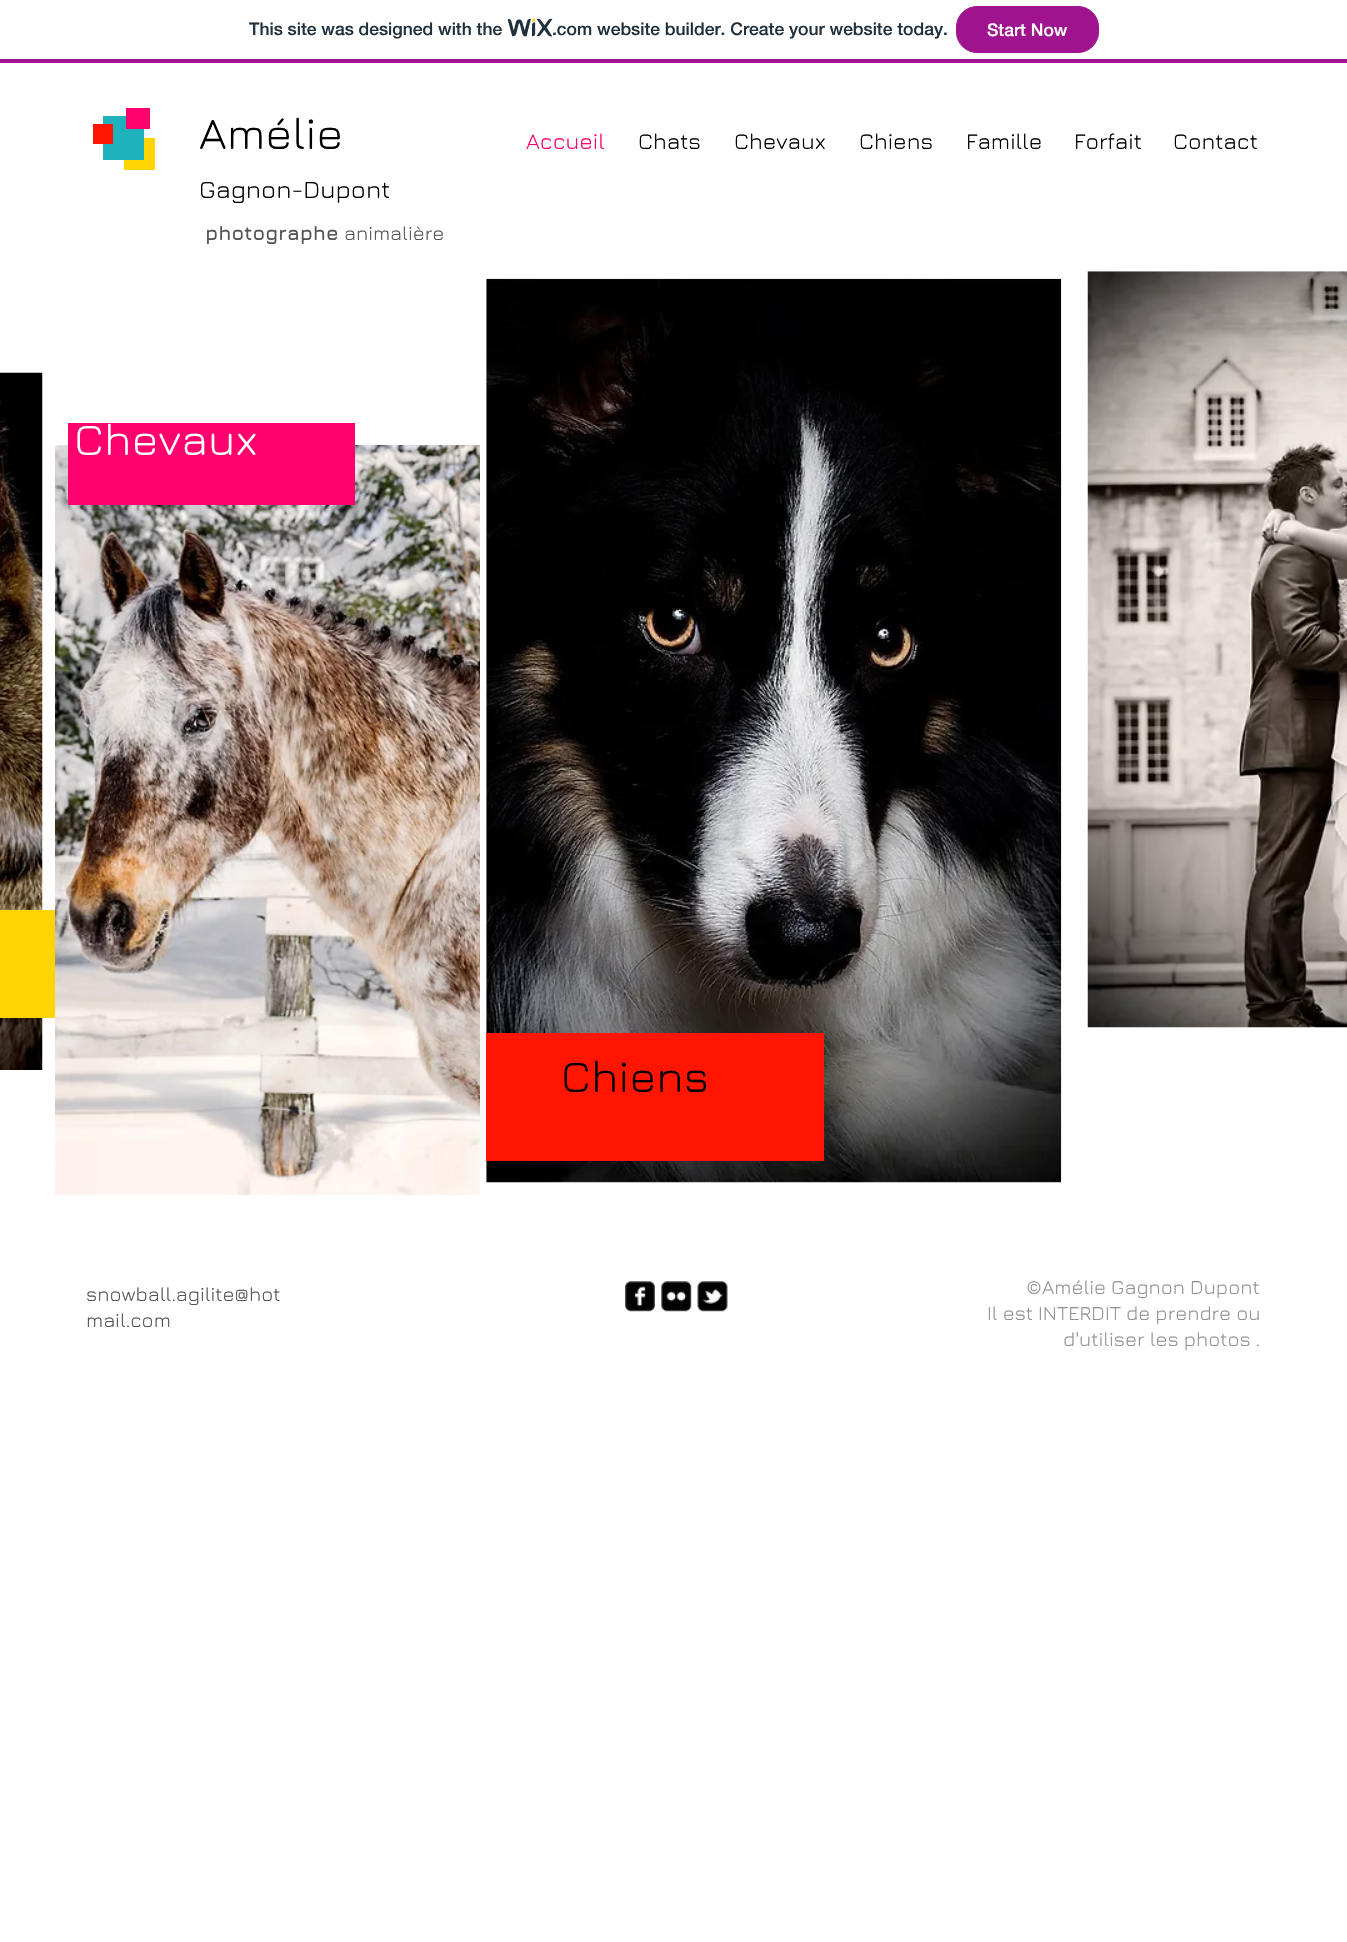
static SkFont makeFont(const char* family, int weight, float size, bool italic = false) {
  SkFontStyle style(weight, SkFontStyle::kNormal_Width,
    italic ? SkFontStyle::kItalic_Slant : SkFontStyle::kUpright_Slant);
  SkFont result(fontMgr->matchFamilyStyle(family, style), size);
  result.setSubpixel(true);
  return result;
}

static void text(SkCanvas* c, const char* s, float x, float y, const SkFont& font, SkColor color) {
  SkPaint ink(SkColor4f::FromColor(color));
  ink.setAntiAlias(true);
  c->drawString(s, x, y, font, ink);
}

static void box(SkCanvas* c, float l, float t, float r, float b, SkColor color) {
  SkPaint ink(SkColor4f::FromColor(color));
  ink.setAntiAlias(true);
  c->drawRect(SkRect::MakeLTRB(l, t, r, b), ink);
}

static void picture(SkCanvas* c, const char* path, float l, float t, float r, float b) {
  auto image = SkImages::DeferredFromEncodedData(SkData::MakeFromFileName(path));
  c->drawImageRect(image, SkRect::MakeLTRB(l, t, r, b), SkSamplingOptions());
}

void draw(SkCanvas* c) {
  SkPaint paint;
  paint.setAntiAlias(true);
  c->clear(0xffffffff);
  box(c, 0, 59, 1347, 63, 0xffa0138e);
  SkFont face1 = makeFont("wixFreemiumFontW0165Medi", 500, 17.5f);
  text(c, "This site was designed with the", 249, 35, face1, 0xff20303c);
  picture(c, "img_01.png", 508, 18, 553, 37);
  text(c, ".com website builder. Create your website today.", 552, 35, face1, 0xff20303c);
  paint.setColor(0xffa0138e);
  c->drawRoundRect(SkRect::MakeLTRB(956.5f, 6.5f, 1098.5f, 52.5f), 20.5f, 20.5f, paint);
  paint.setStyle(SkPaint::kStroke_Style);
  paint.setStrokeWidth(1);
  c->drawRoundRect(SkRect::MakeLTRB(956.5f, 6.5f, 1098.5f, 52.5f), 20.5f, 20.5f, paint);
  text(c, "Start Now", 987, 36, face1, 0xffffffff);
  box(c, 124, 138, 155, 170, 0xffffd400);
  box(c, 103, 116, 144, 160, 0xff1eb2bc);
  box(c, 126, 108, 150, 129, 0xffff006e);
  box(c, 93, 124, 113, 144, 0xffff1500);
  SkFont face2 = makeFont("Jura", 400, 45);
  text(c, "Amélie", 199, 149, face2, 0xff000000);
  SkFont face3 = makeFont("Jura", 400, 25);
  text(c, "Gagnon-Dupont", 199, 198, face3, 0xff000000);
  SkFont face4 = makeFont("Jura", 400, 22.5f);
  text(c, "Accueil", 526, 149, face4, 0xffff006e);
  text(c, "Chats", 638, 149, face4, 0xff000000);
  text(c, "Chevaux", 734, 149, face4, 0xff000000);
  text(c, "Chiens", 859, 149, face4, 0xff000000);
  text(c, "Famille", 966, 149, face4, 0xff000000);
  text(c, "Forfait", 1074, 149, face4, 0xff000000);
  text(c, "Contact", 1173, 149, face4, 0xff000000);
  SkFont face5 = makeFont("Jura", 700, 20);
  text(c, "photographe", 205, 240, face5, 0xff545454);
  SkFont face6 = makeFont("Jura", 400, 20);
  text(c, "animalière", 344, 240, face6, 0xff545454);
  picture(c, "img_02.png", 0, 372, 43, 1070);
  picture(c, "img_05.png", 55, 445, 480, 1195);
  box(c, 68, 423, 355, 505, 0xffff006e);
  text(c, "Chevaux", 74, 455, face2, 0xffffffff);
  picture(c, "img_03.png", 486, 278, 1062, 1183);
  picture(c, "img_04.png", 1087, 271, 1347, 1028);
  box(c, 0, 910, 55, 1018, 0xffffd400);
  box(c, 486, 1033, 824, 1161, 0xffff1500);
  text(c, "Chiens", 561, 1092, face2, 0xff000000);
  text(c, "snowball.agilite@hot", 86, 1301, face6, 0xff545454);
  text(c, "mail.com", 86, 1327, face6, 0xff545454);
  picture(c, "img_06.png", 625, 1281, 655, 1312);
  picture(c, "img_07.png", 661, 1281, 692, 1312);
  picture(c, "img_08.png", 697, 1281, 728, 1312);
  text(c, "©Amélie Gagnon Dupont", 1026, 1294, face6, 0xff929292);
  text(c, "Il est INTERDIT de prendre ou", 987, 1320, face6, 0xff929292);
  text(c, "d'utiliser les photos .", 1063, 1346, face6, 0xff929292);
}
